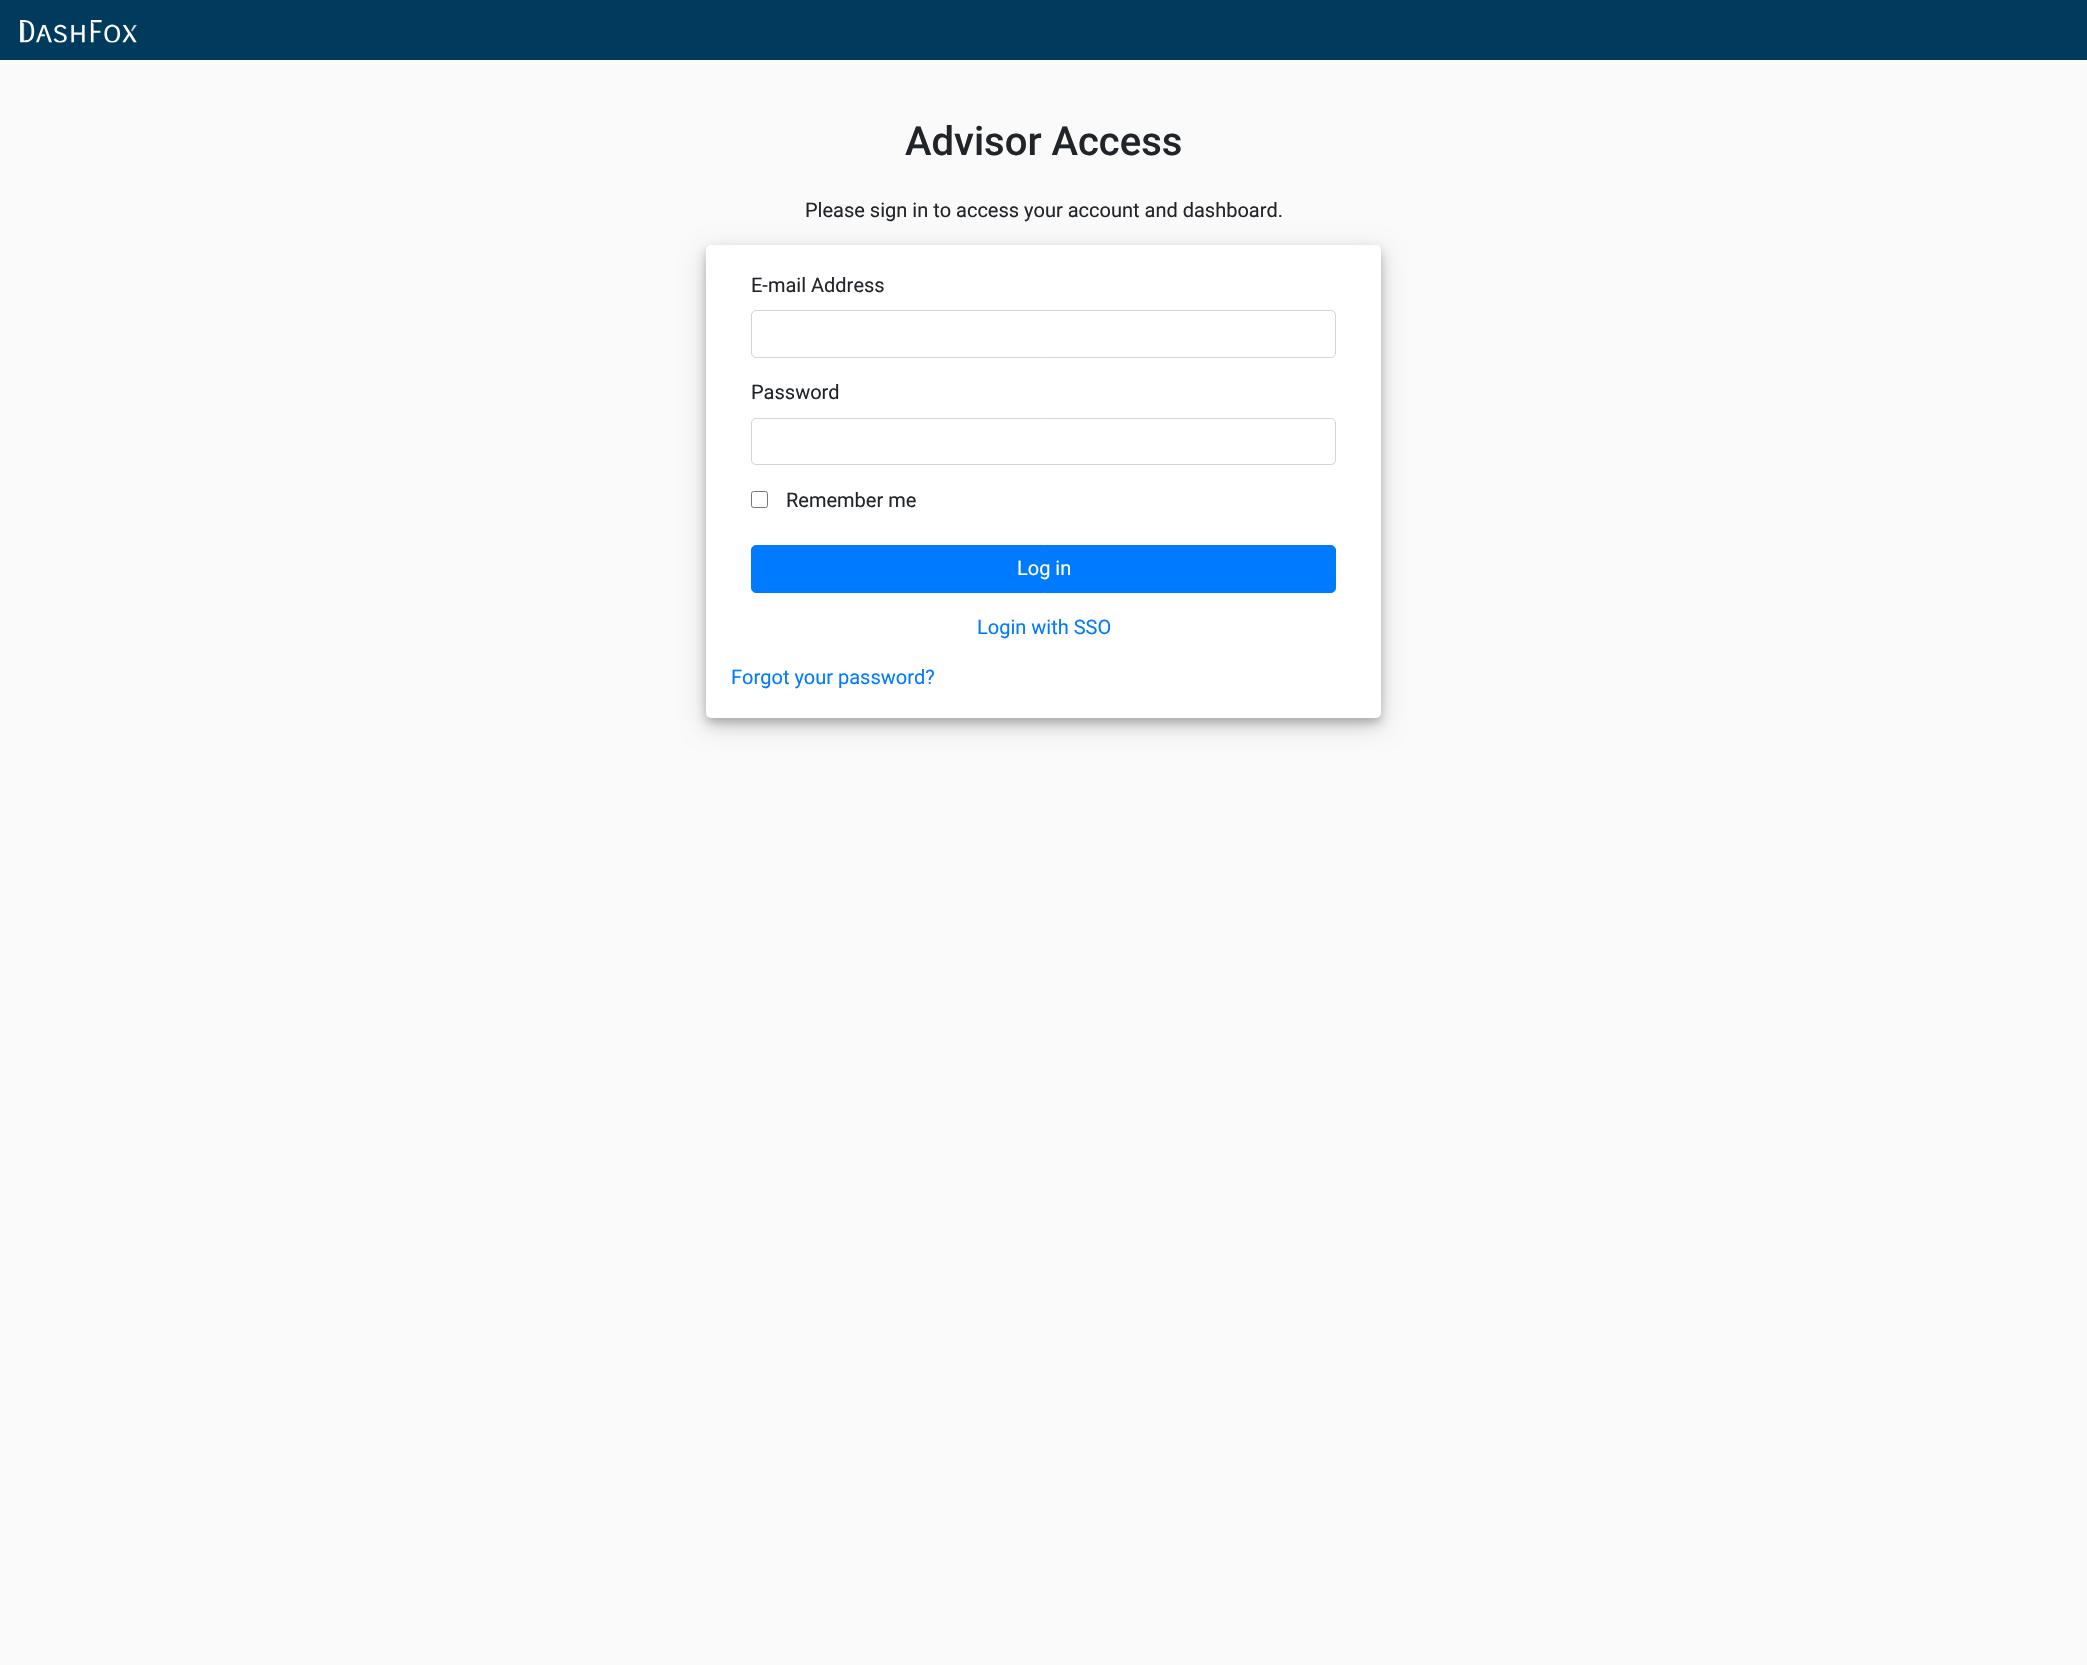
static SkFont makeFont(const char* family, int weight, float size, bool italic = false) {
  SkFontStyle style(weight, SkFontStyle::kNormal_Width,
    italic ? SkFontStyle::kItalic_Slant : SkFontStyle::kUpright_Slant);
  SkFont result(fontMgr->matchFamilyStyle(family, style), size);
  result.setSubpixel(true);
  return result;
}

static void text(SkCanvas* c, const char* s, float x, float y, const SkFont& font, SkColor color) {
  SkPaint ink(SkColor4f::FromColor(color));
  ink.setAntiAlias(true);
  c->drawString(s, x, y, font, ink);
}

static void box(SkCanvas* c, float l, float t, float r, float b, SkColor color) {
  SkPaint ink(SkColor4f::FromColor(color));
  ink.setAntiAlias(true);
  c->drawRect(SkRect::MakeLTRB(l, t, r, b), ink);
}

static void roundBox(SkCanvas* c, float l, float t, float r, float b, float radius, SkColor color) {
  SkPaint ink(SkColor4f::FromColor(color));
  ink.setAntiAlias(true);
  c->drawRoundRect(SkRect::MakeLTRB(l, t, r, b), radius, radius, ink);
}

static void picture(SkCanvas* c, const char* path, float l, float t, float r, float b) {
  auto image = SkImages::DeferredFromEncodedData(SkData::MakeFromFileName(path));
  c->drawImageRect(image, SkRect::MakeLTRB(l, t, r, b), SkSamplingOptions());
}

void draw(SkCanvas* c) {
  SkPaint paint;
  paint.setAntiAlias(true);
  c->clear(0xfffafafa);
  box(c, 0, 0, 2087, 60, 0xff003a5d);
  picture(c, "img_01.png", 20, 20, 137, 43);
  SkFont face1 = makeFont("Roboto", 500, 40);
  text(c, "Advisor Access", 905, 155, face1, 0xff212529);
  SkFont face2 = makeFont("Roboto", 400, 20);
  text(c, "Please sign in to access your account and dashboard.", 805, 217, face2, 0xff212529);
  paint.setColor(0x30000000);
  paint.setMaskFilter(SkMaskFilter::MakeBlur(kNormal_SkBlurStyle, 12.5f));
  c->drawRoundRect(SkRect::MakeLTRB(706, 253, 1381, 725), 5, 5, paint);
  paint.setMaskFilter(nullptr);
  paint.setColor(0x33000000);
  paint.setMaskFilter(SkMaskFilter::MakeBlur(kNormal_SkBlurStyle, 4));
  c->drawRoundRect(SkRect::MakeLTRB(706, 250, 1381, 723), 5, 5, paint);
  paint.setMaskFilter(nullptr);
  roundBox(c, 706, 245, 1381, 718, 5, 0xffffffff);
  text(c, "E-mail Address", 751, 292, face2, 0xff212529);
  paint.setStyle(SkPaint::kStroke_Style);
  paint.setStrokeWidth(1);
  paint.setColor(0xffced4da);
  c->drawRoundRect(SkRect::MakeLTRB(751.5f, 310.5f, 1335.5f, 357.5f), 4.5f, 4.5f, paint);
  text(c, "Password", 751, 399, face2, 0xff212529);
  c->drawRoundRect(SkRect::MakeLTRB(751.5f, 418.5f, 1335.5f, 464.5f), 4.5f, 4.5f, paint);
  paint.setColor(0xff767676);
  c->drawRoundRect(SkRect::MakeLTRB(751.5f, 491.5f, 767.5f, 507.5f), 2, 2, paint);
  text(c, "Remember me", 786, 507, face2, 0xff212529);
  paint.setStyle(SkPaint::kFill_Style);
  paint.setColor(0xff007bff);
  c->drawRoundRect(SkRect::MakeLTRB(751.5f, 545.5f, 1335.5f, 592.5f), 4.5f, 4.5f, paint);
  paint.setStyle(SkPaint::kStroke_Style);
  c->drawRoundRect(SkRect::MakeLTRB(751.5f, 545.5f, 1335.5f, 592.5f), 4.5f, 4.5f, paint);
  text(c, "Log in", 1017, 575, face2, 0xffffffff);
  text(c, "Login with SSO", 977, 634, face2, 0xff007bff);
  text(c, "Forgot your password?", 731, 684, face2, 0xff007bff);
}
